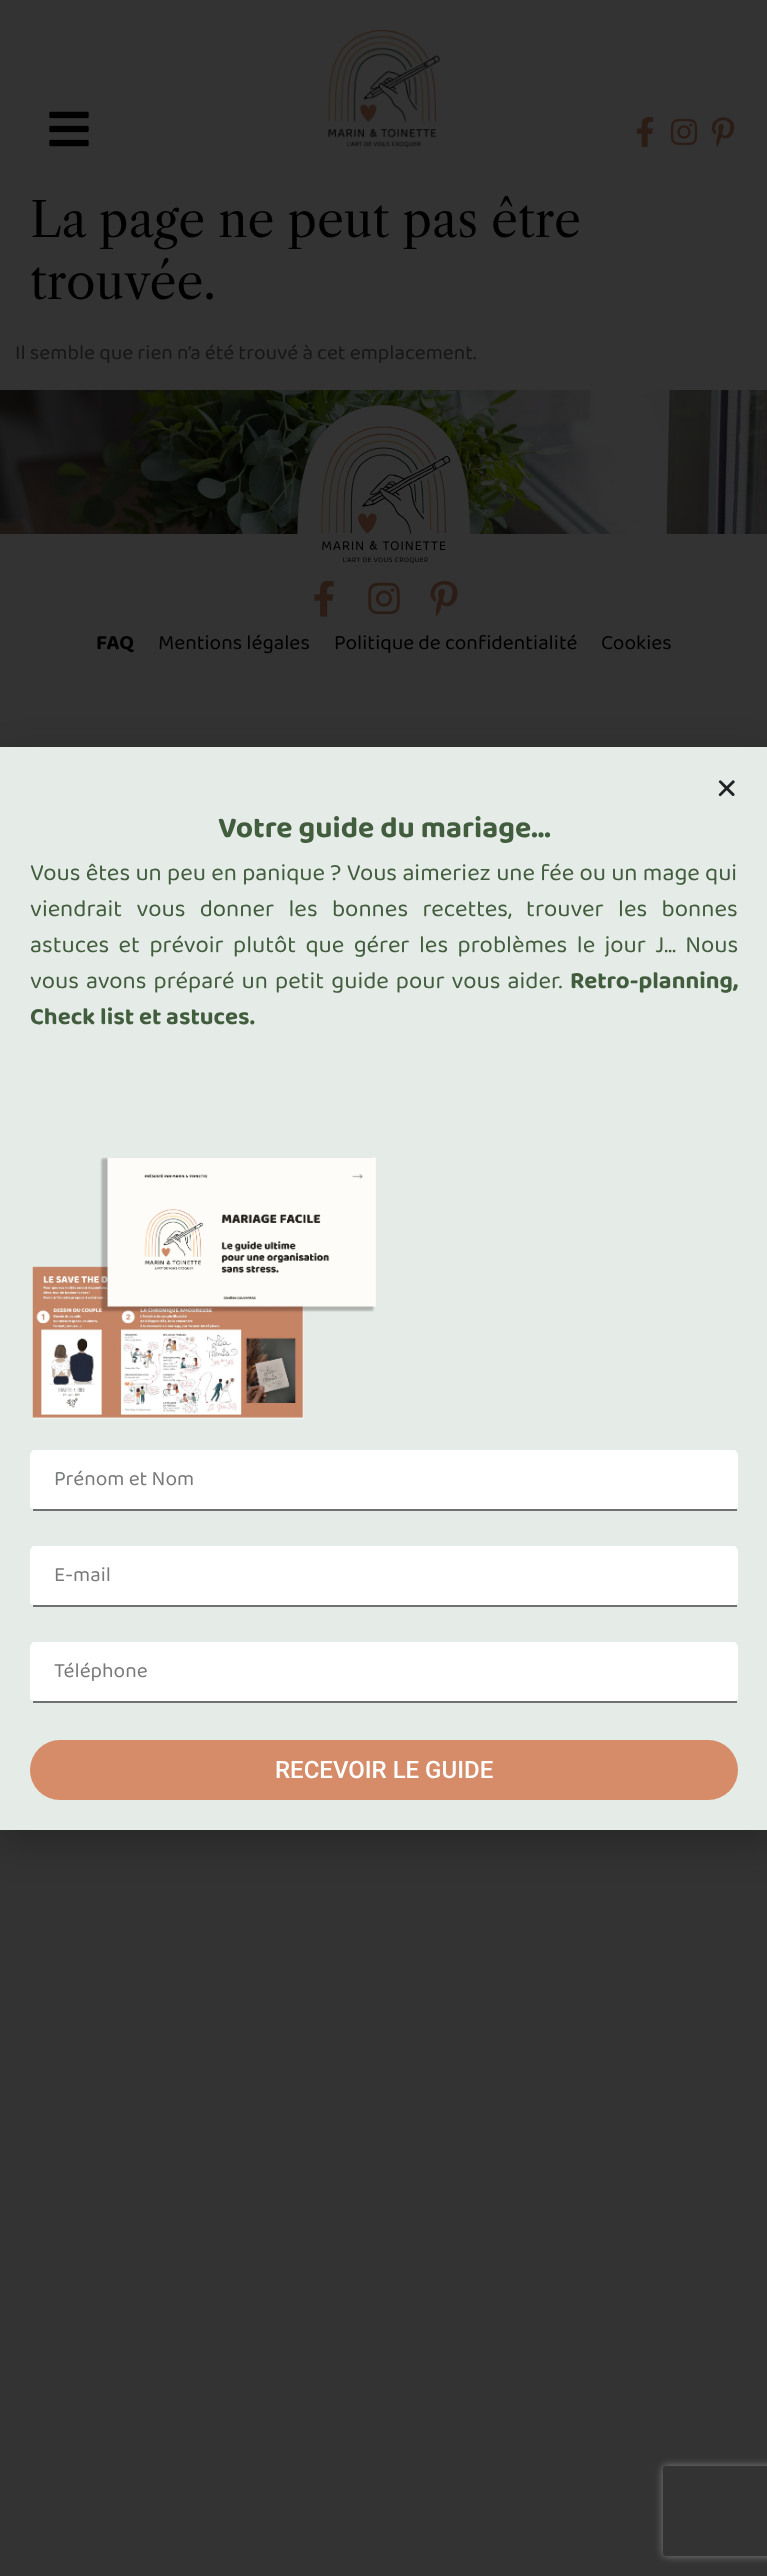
<svg xmlns="http://www.w3.org/2000/svg" width="767" height="2576">
	<defs>
		<clipPath id="clip1"><path d="M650 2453H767V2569H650ZM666 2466H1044C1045.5 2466 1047 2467.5 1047 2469V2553C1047 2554.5 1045.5 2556 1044 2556H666C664.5 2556 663 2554.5 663 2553V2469C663 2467.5 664.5 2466 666 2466Z" clip-rule="evenodd" /></clipPath>
	</defs>
	<rect width="100%" height="100%" fill="#333333" />
	<image x="49" y="111" width="40" height="36" href="assets/img1.png" />
	<image x="328" y="30" width="112" height="117" href="assets/img2.png" />
	<image x="636" y="117" width="18" height="30" href="assets/img3.png" />
	<image x="670" y="118" width="28" height="28" href="assets/img4.png" />
	<image x="711" y="117" width="24" height="30" href="assets/img5.png" />
	<g font-family="Libre Caslon Text" font-size="48" fill="#000000">
		<text x="30" y="237">La page ne peut pas être</text>
		<text x="30" y="299">trouvée.</text>
	</g>
	<text x="15" y="359" font-family="'Baloo Thambi 2'" font-size="21" fill="#161616">Il semble que rien n’a été trouvé à cet emplacement.</text>
	<image x="0" y="390" width="767" height="144" href="assets/img6.png" />
	<image x="297" y="405" width="174" height="159" href="assets/img7.png" />
	<image x="314" y="581" width="20" height="36" href="assets/img8.png" />
	<image x="368" y="582" width="32" height="33" href="assets/img9.png" />
	<image x="430" y="581" width="28" height="35" href="assets/img10.png" />
	<text x="96" y="649" font-family="'Baloo Thambi 2'" font-size="21" font-weight="700" fill="#000000">FAQ</text>
	<g font-family="'Baloo Thambi 2'" font-size="21" fill="#000000">
		<text x="158" y="649">Mentions légales</text>
		<text x="334" y="649">Politique de confidentialité</text>
		<text x="601" y="649">Cookies</text>
	</g>
	<rect x="-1" y="755" width="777" height="1092" fill="#000000" fill-opacity="0.2" filter="blur(17px)" />
	<rect x="0" y="747" width="767" height="1083" fill="#E5EBE7" />
	<image x="718" y="780" width="17" height="17" href="assets/img11.png" />
	<text x="218" y="837" font-family="'Baloo Thambi 2'" font-size="30" font-weight="700" fill="#415D3D">Votre guide du mariage…</text>
	<g font-family="'Baloo Thambi 2'" font-size="24" fill="#415D3D">
		<text x="30" y="880" word-spacing="0.5">Vous êtes un peu en panique ? Vous aimeriez une fée ou un mage qui</text>
		<text x="30" y="916" word-spacing="9.5">viendrait vous donner les bonnes recettes, trouver les bonnes</text>
		<text x="30" y="952" word-spacing="4.6">astuces et prévoir plutôt que gérer les problèmes le jour J… Nous</text>
		<text x="30" y="988" word-spacing="2.25">vous avons préparé un petit guide pour vous aider.</text>
	</g>
	<g font-family="'Baloo Thambi 2'" font-size="24" font-weight="700" fill="#415D3D">
		<text x="570" y="988">Retro-planning,</text>
		<text x="30" y="1024">Check list et astuces.</text>
	</g>
	<image x="32" y="1157" width="344" height="262" href="assets/img12.png" />
	<path d="M34 1450H734C736 1450 738 1453 738 1455V1506C738 1508 736 1509 734 1509H34C32 1509 30 1508 30 1506V1455C30 1453 32 1450 34 1450Z" fill="#FFFFFF" />
	<rect x="33" y="1509" width="704" height="2" fill="#707070" />
	<text x="54" y="1485" font-family="'Baloo Thambi 2'" font-size="21" fill="#797A7C">Prénom et Nom</text>
	<path d="M34 1546H734C736 1546 738 1549 738 1551V1602C738 1604 736 1605 734 1605H34C32 1605 30 1604 30 1602V1551C30 1549 32 1546 34 1546Z" fill="#FFFFFF" />
	<rect x="33" y="1605" width="704" height="2" fill="#707070" />
	<text x="54" y="1581" font-family="'Baloo Thambi 2'" font-size="21" fill="#797A7C">E-mail</text>
	<path d="M34 1642H734C736 1642 738 1645 738 1647V1698C738 1700 736 1701 734 1701H34C32 1701 30 1700 30 1698V1647C30 1645 32 1642 34 1642Z" fill="#FFFFFF" />
	<rect x="33" y="1701" width="704" height="2" fill="#707070" />
	<text x="54" y="1677" font-family="'Baloo Thambi 2'" font-size="21" fill="#797A7C">Téléphone</text>
	<rect x="30" y="1740" width="708" height="60" rx="30" fill="#D68C68" />
	<text x="275" y="1778" font-family="Roboto" font-size="24" font-weight="500" fill="#FFFFFF">RECEVOIR LE GUIDE</text>
	<g clip-path="url(#clip1)">
		<rect x="663" y="2466" width="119" height="90" rx="3" fill="#808080" filter="blur(4px)" />
	</g>
</svg>
